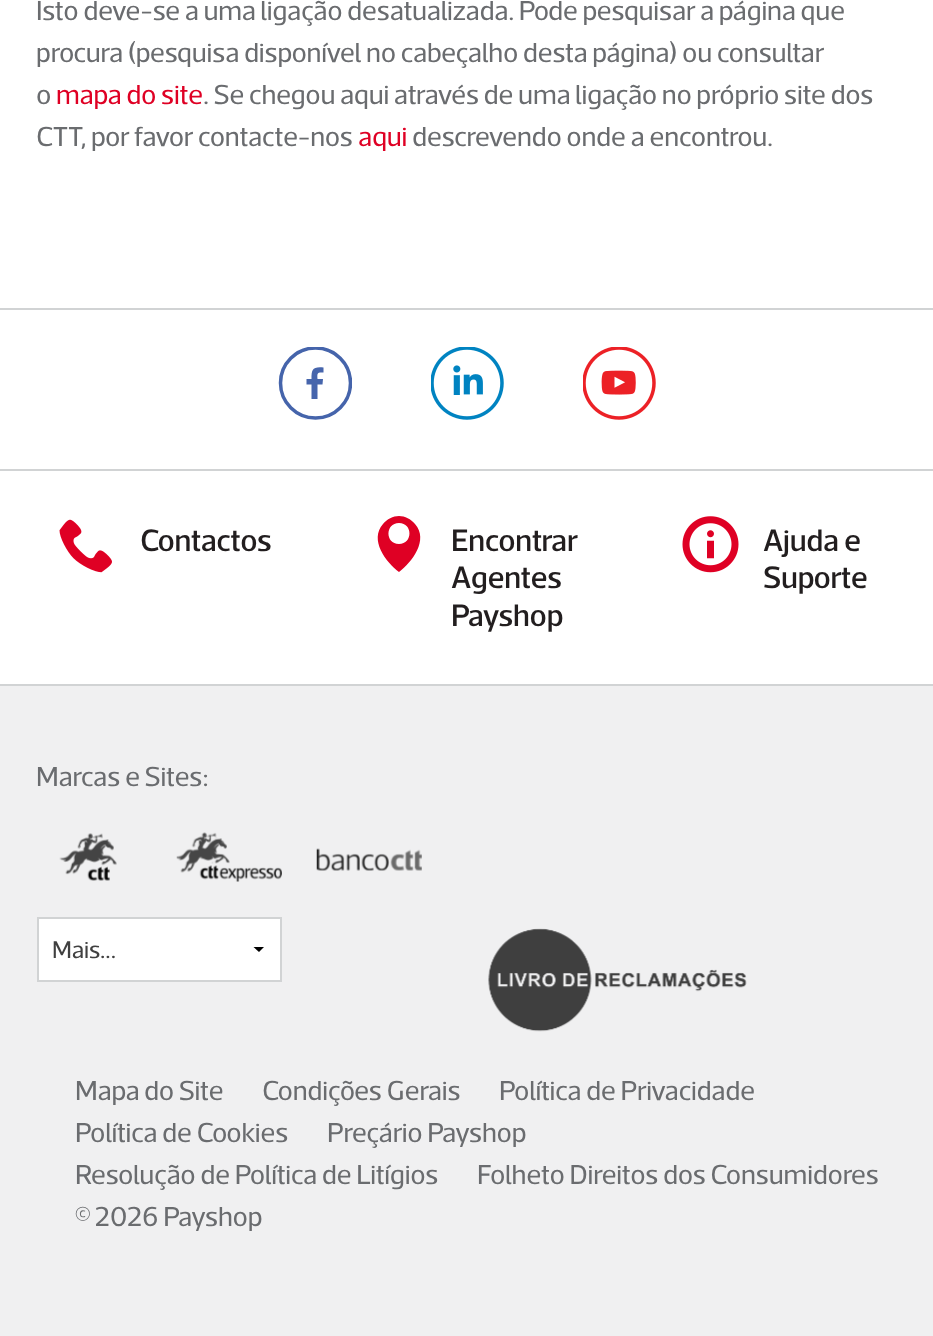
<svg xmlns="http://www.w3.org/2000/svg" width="933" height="1336">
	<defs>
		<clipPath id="clip1"><rect x="278" y="347" width="74" height="73" /></clipPath>
	</defs>
	<rect width="100%" height="100%" fill="#FFFFFF" />
	<g font-family="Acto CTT" font-size="28" fill="#6A6C6F">
		<text x="36" y="20">Isto deve-se a uma ligação desatualizada. Pode pesquisar a página que</text>
		<text x="36" y="62">procura (pesquisa disponível no cabeçalho desta página) ou consultar</text>
		<text x="36" y="104">o</text>
	</g>
	<text x="56" y="104" font-family="Acto CTT" font-size="28" fill="#DF0024">mapa do site</text>
	<g font-family="Acto CTT" font-size="28" fill="#6A6C6F">
		<text x="203" y="104">. Se chegou aqui através de uma ligação no próprio site dos</text>
		<text x="36" y="146">CTT, por favor contacte-nos</text>
	</g>
	<text x="358" y="146" font-family="Acto CTT" font-size="28" fill="#DF0024">aqui</text>
	<text x="412" y="146" font-family="Acto CTT" font-size="28" fill="#6A6C6F">descrevendo onde a encontrou.</text>
	<rect x="0" y="686" width="933" height="650" fill="#F0F0F1" />
	<rect x="0" y="308" width="933" height="2" fill="#D1D3D4" />
	<rect x="0" y="469" width="933" height="2" fill="#D1D3D4" />
	<path d="M320 372.5H323.5V367.5C312.5 366.5 311.5 369.5 311.5 379H306.5V384.5H311.5V399H317.5V384.5H322.5L323 379H317.5C317.5 376.5 316.5 372.5 320 372.5" fill="#4665AC" fill-rule="evenodd" />
	<g clip-path="url(#clip1)">
		<circle cx="315.5" cy="383" r="35" fill="none" stroke="#4564AB" stroke-width="3.5" />
	</g>
	<image x="431" y="347" width="73" height="73" href="assets/img1.png" />
	<image x="583" y="347" width="73" height="73" href="assets/img2.png" />
	<rect x="0" y="684" width="933" height="2" fill="#D1D3D4" />
	<image x="59" y="519" width="53" height="54" href="assets/img3.png" />
	<text x="140" y="551" font-family="Acto CTT" font-size="31.5" font-weight="500" fill="#221E1F">Contactos</text>
	<path d="M399 516C393 516 387 519 383 524C369 540 386 562 399 572C412 562 429 540 415 524C411 519 405 516 399 516ZM399 544C385 544 385 523 399 523C413 523 413 544 399 544Z" fill="#DF0024" />
	<g font-family="Acto CTT" font-size="31.5" font-weight="500" fill="#221E1F">
		<text x="451" y="551">Encontrar</text>
		<text x="451" y="588">Agentes</text>
		<text x="451" y="626">Payshop</text>
	</g>
	<image x="682" y="516" width="57" height="57" href="assets/img4.png" />
	<g font-family="Acto CTT" font-size="31.5" font-weight="500" fill="#221E1F">
		<text x="763" y="551">Ajuda e</text>
		<text x="763" y="588">Suporte</text>
	</g>
	<text x="36" y="786" font-family="Acto CTT" font-size="28" fill="#6A6C6F">Marcas e Sites:</text>
	<image x="59" y="833" width="58" height="48" href="assets/img5.png" />
	<image x="176" y="832" width="106" height="50" href="assets/img6.png" />
	<image x="316" y="848" width="106" height="23" href="assets/img7.png" />
	<rect x="39" y="919" width="241" height="61" fill="#FFFFFF" />
	<path d="M264 947L259 952L253.5 947Z" fill="#000000" />
	<rect x="38" y="918" width="243" height="63" fill="none" stroke="#D1D3D4" stroke-width="2" />
	<text x="52" y="958" font-family="Acto CTT" font-size="24.5" fill="#404040">Mais...</text>
	<image x="488" y="928" width="259" height="104" href="assets/img8.png" />
	<g font-family="Acto CTT" font-size="28" fill="#6A6C6F">
		<text x="75" y="1100">Mapa do Site</text>
		<text x="262" y="1100">Condições Gerais</text>
		<text x="499" y="1100">Política de Privacidade</text>
		<text x="75" y="1142">Política de Cookies</text>
		<text x="327" y="1142">Preçário Payshop</text>
		<text x="75" y="1184">Resolução de Política de Litígios</text>
		<text x="477" y="1184">Folheto Direitos dos Consumidores</text>
		<text x="75" y="1226">© 2026 Payshop</text>
	</g>
</svg>
